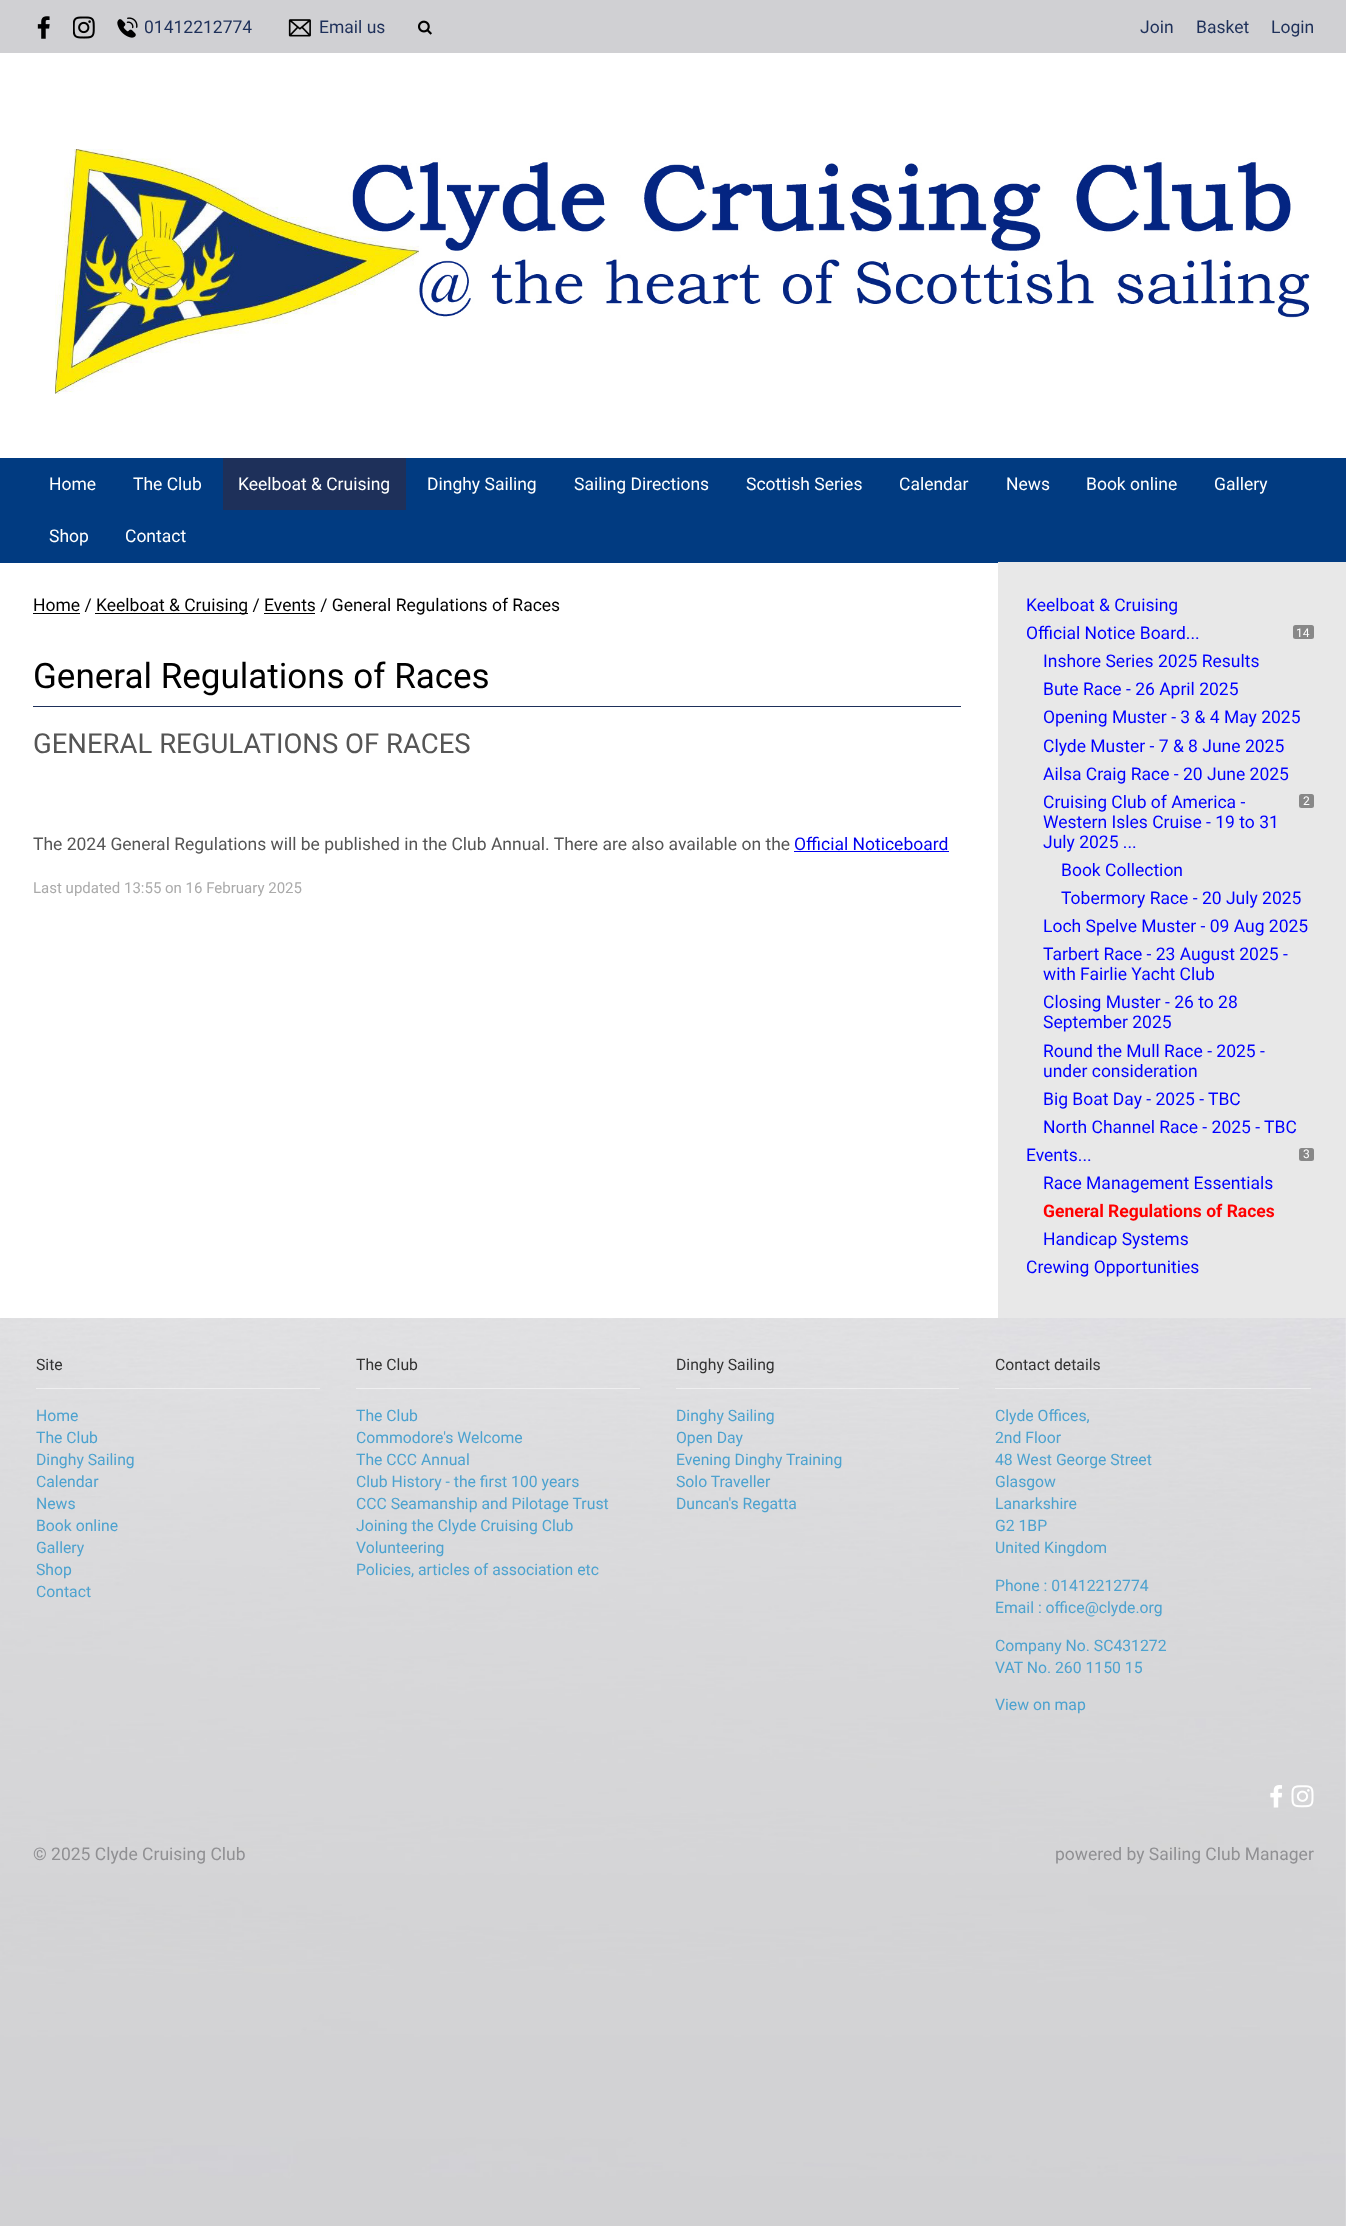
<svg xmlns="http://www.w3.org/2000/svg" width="1346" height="2226">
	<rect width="100%" height="100%" fill="#FFFFFF" />
	<image x="0" y="1318" width="1346" height="908" href="assets/img1.png" />
	<rect x="0" y="0" width="1346" height="53" fill="#D0D0D3" />
	<image x="37" y="16" width="13" height="23" href="assets/img2.png" />
	<image x="73" y="16" width="22" height="23" href="assets/img3.png" />
	<image x="117" y="17" width="21" height="21" href="assets/img4.png" />
	<text x="144" y="33" font-family="Roboto" font-size="17.5" fill="#1E305A">01412212774</text>
	<image x="288" y="19" width="23" height="18" href="assets/img5.png" />
	<text x="319" y="33" font-family="Roboto" font-size="17.5" fill="#1E305A">Email us</text>
	<image x="418" y="20" width="14" height="15" href="assets/img6.png" />
	<g font-family="Roboto" font-size="17.5" fill="#1E305A">
		<text x="1140" y="33">Join</text>
		<text x="1196" y="33">Basket</text>
		<text x="1271" y="33">Login</text>
	</g>
	<image x="55" y="149" width="1255" height="245" href="assets/img7.png" />
	<rect x="0" y="458" width="1346" height="105" fill="#013B81" />
	<g font-family="Roboto" font-size="17.5" fill="#FFFFFF">
		<text x="49" y="490">Home</text>
		<text x="133" y="490">The Club</text>
	</g>
	<rect x="223" y="458" width="183" height="52" fill="#1E305A" />
	<g font-family="Roboto" font-size="17.5" fill="#FFFFFF">
		<text x="238" y="490">Keelboat &amp; Cruising</text>
		<text x="427" y="490">Dinghy Sailing</text>
		<text x="574" y="490">Sailing Directions</text>
		<text x="746" y="490">Scottish Series</text>
		<text x="899" y="490">Calendar</text>
		<text x="1006" y="490">News</text>
		<text x="1086" y="490">Book online</text>
		<text x="1214" y="490">Gallery</text>
		<text x="49" y="542">Shop</text>
		<text x="125" y="542">Contact</text>
	</g>
	<rect x="998" y="562" width="348" height="756" fill="#E8E8E8" />
	<text x="33" y="611" font-family="Roboto" font-size="17.5" fill="#000000">Home /</text>
	<rect x="33" y="613" width="47" height="1" fill="#000000" />
	<rect x="95" y="613" width="153" height="1" fill="#000000" />
	<text x="96" y="611" font-family="Roboto" font-size="17.5" fill="#000000">Keelboat &amp; Cruising / Events / General Regulations of Races</text>
	<rect x="264" y="613" width="51" height="1" fill="#000000" />
	<rect x="33" y="706" width="928" height="1" fill="#1E305A" />
	<text x="33" y="688" font-family="Roboto" font-size="35" fill="#000000">General Regulations of Races</text>
	<text x="33" y="753" font-family="Roboto" font-size="27.5" fill="#555555">GENERAL REGULATIONS OF RACES</text>
	<text x="33" y="850" font-family="Roboto" font-size="17.5" fill="#555555">The 2024 General Regulations will be published in the Club Annual. There are also available on the</text>
	<text x="794" y="850" font-family="Roboto" font-size="17.5" fill="#0000EE">Official Noticeboard</text>
	<rect x="794" y="851" width="155" height="1" fill="#0000EE" />
	<text x="33" y="893" font-family="Roboto" font-size="15" fill="#AAAAAA">Last updated 13:55 on 16 February 2025</text>
	<g font-family="Roboto" font-size="17.5" fill="#0000FF">
		<text x="1026" y="611">Keelboat &amp; Cruising</text>
		<text x="1026" y="639">Official Notice Board...</text>
	</g>
	<rect x="1293" y="625" width="21" height="14" rx="2.5" fill="#888888" />
	<text x="1296" y="637" font-family="Roboto" font-size="12" fill="#FFFFFF">14</text>
	<g font-family="Roboto" font-size="17.5" fill="#0000FF">
		<text x="1043" y="667">Inshore Series 2025 Results</text>
		<text x="1043" y="695">Bute Race - 26 April 2025</text>
		<text x="1043" y="723">Opening Muster - 3 &amp; 4 May 2025</text>
		<text x="1043" y="752">Clyde Muster - 7 &amp; 8 June 2025</text>
		<text x="1043" y="780">Ailsa Craig Race - 20 June 2025</text>
		<text x="1043" y="808">Cruising Club of America -</text>
	</g>
	<rect x="1299" y="794" width="15" height="14" rx="2.5" fill="#888888" />
	<text x="1303" y="805" font-family="Roboto" font-size="12" fill="#FFFFFF">2</text>
	<g font-family="Roboto" font-size="17.5" fill="#0000FF">
		<text x="1043" y="828">Western Isles Cruise - 19 to 31</text>
		<text x="1043" y="848">July 2025 ...</text>
		<text x="1061" y="876">Book Collection</text>
		<text x="1061" y="904">Tobermory Race - 20 July 2025</text>
		<text x="1043" y="932">Loch Spelve Muster - 09 Aug 2025</text>
		<text x="1043" y="960">Tarbert Race - 23 August 2025 -</text>
		<text x="1043" y="980">with Fairlie Yacht Club</text>
		<text x="1043" y="1008">Closing Muster - 26 to 28</text>
		<text x="1043" y="1028">September 2025</text>
		<text x="1043" y="1057">Round the Mull Race - 2025 -</text>
		<text x="1043" y="1077">under consideration</text>
		<text x="1043" y="1105">Big Boat Day - 2025 - TBC</text>
		<text x="1043" y="1133">North Channel Race - 2025 - TBC</text>
		<text x="1026" y="1161">Events...</text>
	</g>
	<rect x="1299" y="1148" width="15" height="13" rx="2.5" fill="#888888" />
	<text x="1303" y="1158" font-family="Roboto" font-size="12" fill="#FFFFFF">3</text>
	<text x="1043" y="1189" font-family="Roboto" font-size="17.5" fill="#0000FF">Race Management Essentials</text>
	<text x="1043" y="1217" font-family="Roboto" font-size="17.5" font-weight="700" fill="#FF0000">General Regulations of Races</text>
	<g font-family="Roboto" font-size="17.5" fill="#0000FF">
		<text x="1043" y="1245">Handicap Systems</text>
		<text x="1026" y="1273">Crewing Opportunities</text>
	</g>
	<rect x="36" y="1388" width="284" height="1" fill="#FFFFFF" fill-opacity="0.5" />
	<text x="36" y="1370" font-family="Roboto" font-size="15.75" fill="#333333">Site</text>
	<g font-family="Roboto" font-size="15.75" fill="#4DA2CF">
		<text x="36" y="1421">Home</text>
		<text x="36" y="1443">The Club</text>
		<text x="36" y="1465">Dinghy Sailing</text>
		<text x="36" y="1487">Calendar</text>
		<text x="36" y="1509">News</text>
		<text x="36" y="1531">Book online</text>
		<text x="36" y="1553">Gallery</text>
		<text x="36" y="1575">Shop</text>
		<text x="36" y="1597">Contact</text>
	</g>
	<rect x="356" y="1388" width="284" height="1" fill="#FFFFFF" fill-opacity="0.5" />
	<text x="356" y="1370" font-family="Roboto" font-size="15.75" fill="#333333">The Club</text>
	<g font-family="Roboto" font-size="15.75" fill="#4DA2CF">
		<text x="356" y="1421">The Club</text>
		<text x="356" y="1443">Commodore's Welcome</text>
		<text x="356" y="1465">The CCC Annual</text>
		<text x="356" y="1487">Club History - the first 100 years</text>
		<text x="356" y="1509">CCC Seamanship and Pilotage Trust</text>
		<text x="356" y="1531">Joining the Clyde Cruising Club</text>
		<text x="356" y="1553">Volunteering</text>
		<text x="356" y="1575">Policies, articles of association etc</text>
	</g>
	<rect x="676" y="1388" width="283" height="1" fill="#FFFFFF" fill-opacity="0.5" />
	<text x="676" y="1370" font-family="Roboto" font-size="15.75" fill="#333333">Dinghy Sailing</text>
	<g font-family="Roboto" font-size="15.75" fill="#4DA2CF">
		<text x="676" y="1421">Dinghy Sailing</text>
		<text x="676" y="1443">Open Day</text>
		<text x="676" y="1465">Evening Dinghy Training</text>
		<text x="676" y="1487">Solo Traveller</text>
		<text x="676" y="1509">Duncan's Regatta</text>
	</g>
	<rect x="995" y="1388" width="316" height="1" fill="#FFFFFF" fill-opacity="0.5" />
	<text x="995" y="1370" font-family="Roboto" font-size="15.75" fill="#333333">Contact details</text>
	<g font-family="Roboto" font-size="15.75" fill="#4DA2CF">
		<text x="995" y="1421">Clyde Offices,</text>
		<text x="995" y="1443">2nd Floor</text>
		<text x="995" y="1465">48 West George Street</text>
		<text x="995" y="1487">Glasgow</text>
		<text x="995" y="1509">Lanarkshire</text>
		<text x="995" y="1531">G2 1BP</text>
		<text x="995" y="1553">United Kingdom</text>
		<text x="995" y="1591">Phone : 01412212774</text>
		<text x="995" y="1613">Email : office@clyde.org</text>
		<text x="995" y="1651">Company No. SC431272</text>
		<text x="995" y="1673">VAT No. 260 1150 15</text>
		<text x="995" y="1710">View on map</text>
	</g>
	<image x="1270" y="1785" width="12" height="23" href="assets/img8.png" />
	<image x="1291" y="1785" width="23" height="23" href="assets/img9.png" />
	<g font-family="Roboto" font-size="17.5" fill="#909093">
		<text x="33" y="1860">© 2025 Clyde Cruising Club</text>
		<text x="1055" y="1860">powered by Sailing Club Manager</text>
	</g>
</svg>
